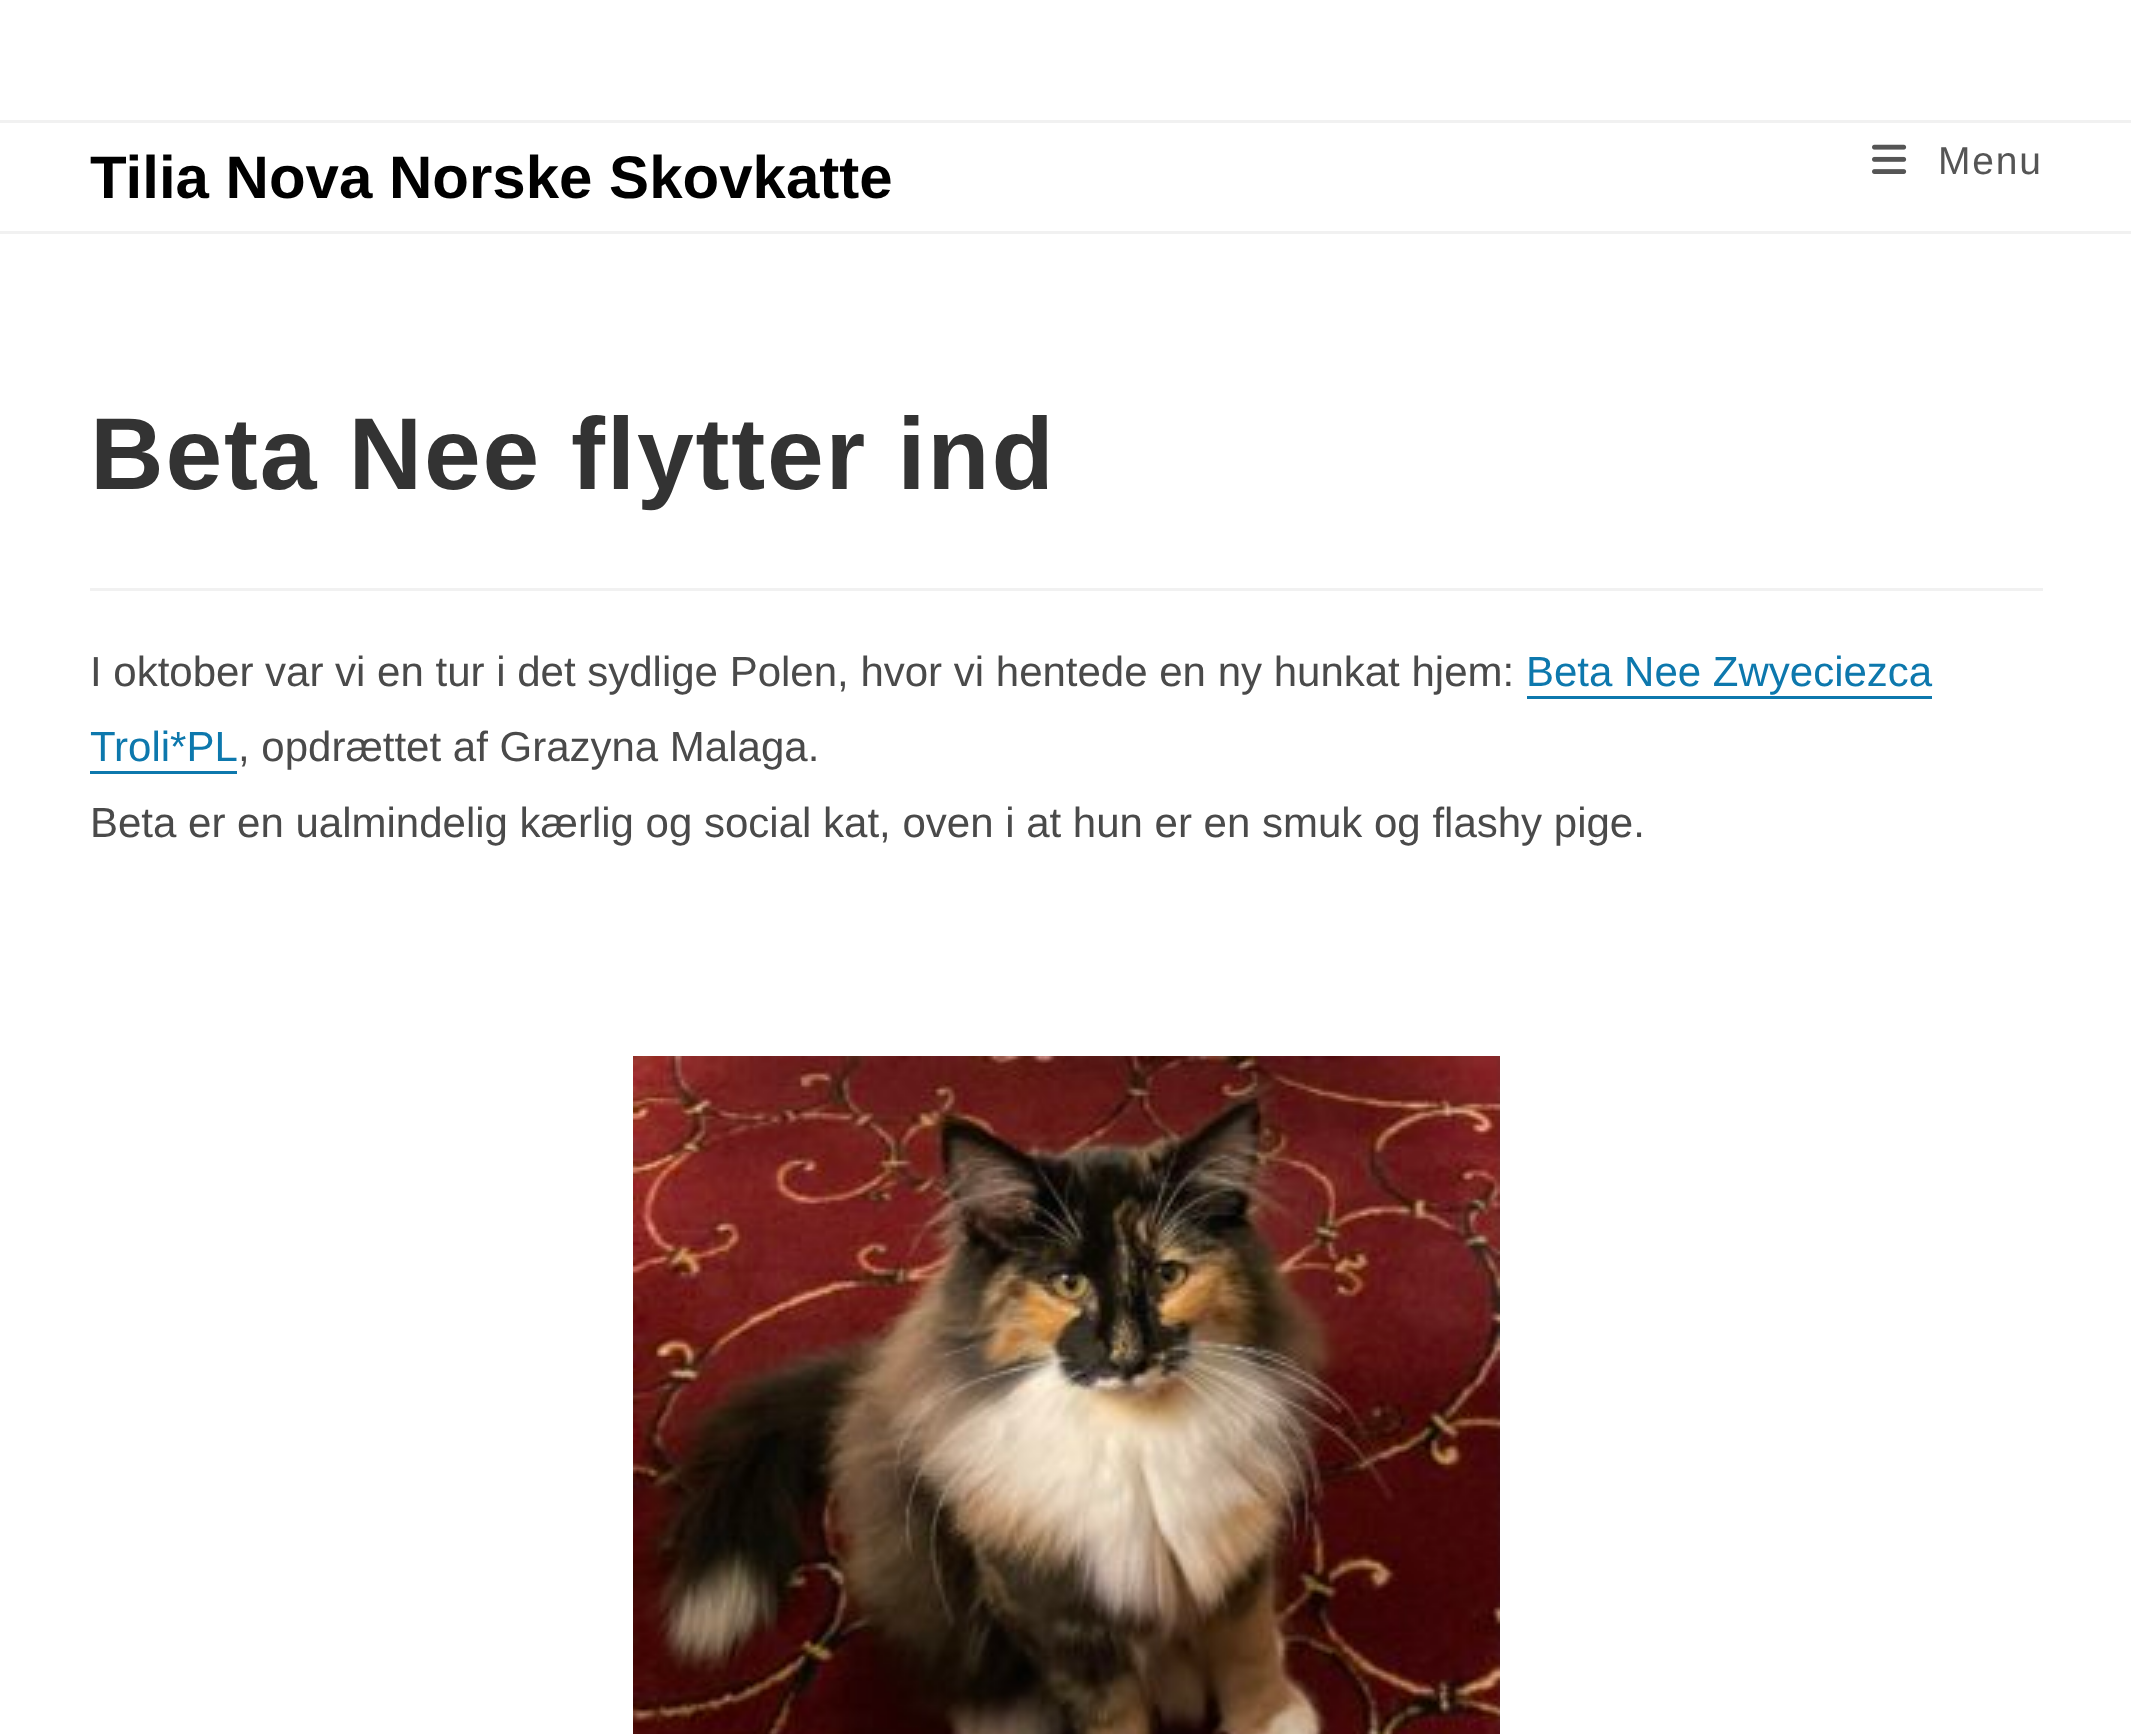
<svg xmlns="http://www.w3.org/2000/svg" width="2131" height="1734">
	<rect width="100%" height="100%" fill="#FFFFFF" />
	<rect x="0" y="120" width="2131" height="3" fill="#F1F1F1" />
	<rect x="0" y="231" width="2131" height="3" fill="#F1F1F1" />
	<text x="90" y="198" font-family="Liberation Sans" font-size="60" font-weight="700" fill="#000000">Tilia Nova Norske Skovkatte</text>
	<image x="1872" y="144" width="35" height="30" href="assets/img1.png" />
	<text x="1938" y="174" font-family="Liberation Sans" font-size="39" letter-spacing="1.8" fill="#555555">Menu</text>
	<rect x="90" y="588" width="1953" height="3" fill="#F1F1F1" />
	<text x="90" y="489" font-family="Liberation Sans" font-size="102" font-weight="700" letter-spacing="1.8" fill="#333333">Beta Nee flytter ind</text>
	<text x="90" y="686" font-family="Liberation Sans" font-size="42" fill="#4A4A4A">I oktober var vi en tur i det sydlige Polen, hvor vi hentede en ny hunkat hjem:</text>
	<text x="1526" y="686" font-family="Liberation Sans" font-size="42" fill="#0D78AD">Beta Nee Zwyeciezca</text>
	<rect x="1527" y="696" width="405" height="3" fill="#0D78AD" />
	<text x="90" y="761" font-family="Liberation Sans" font-size="42" fill="#0D78AD">Troli*PL</text>
	<rect x="90" y="771" width="147" height="3" fill="#0D78AD" />
	<g font-family="Liberation Sans" font-size="42" fill="#4A4A4A">
		<text x="238" y="761">, opdrættet af Grazyna Malaga.</text>
		<text x="90" y="837">Beta er en ualmindelig kærlig og social kat, oven i at hun er en smuk og flashy pige.</text>
	</g>
	<image x="633" y="1056" width="867" height="678" href="assets/img2.png" />
</svg>
